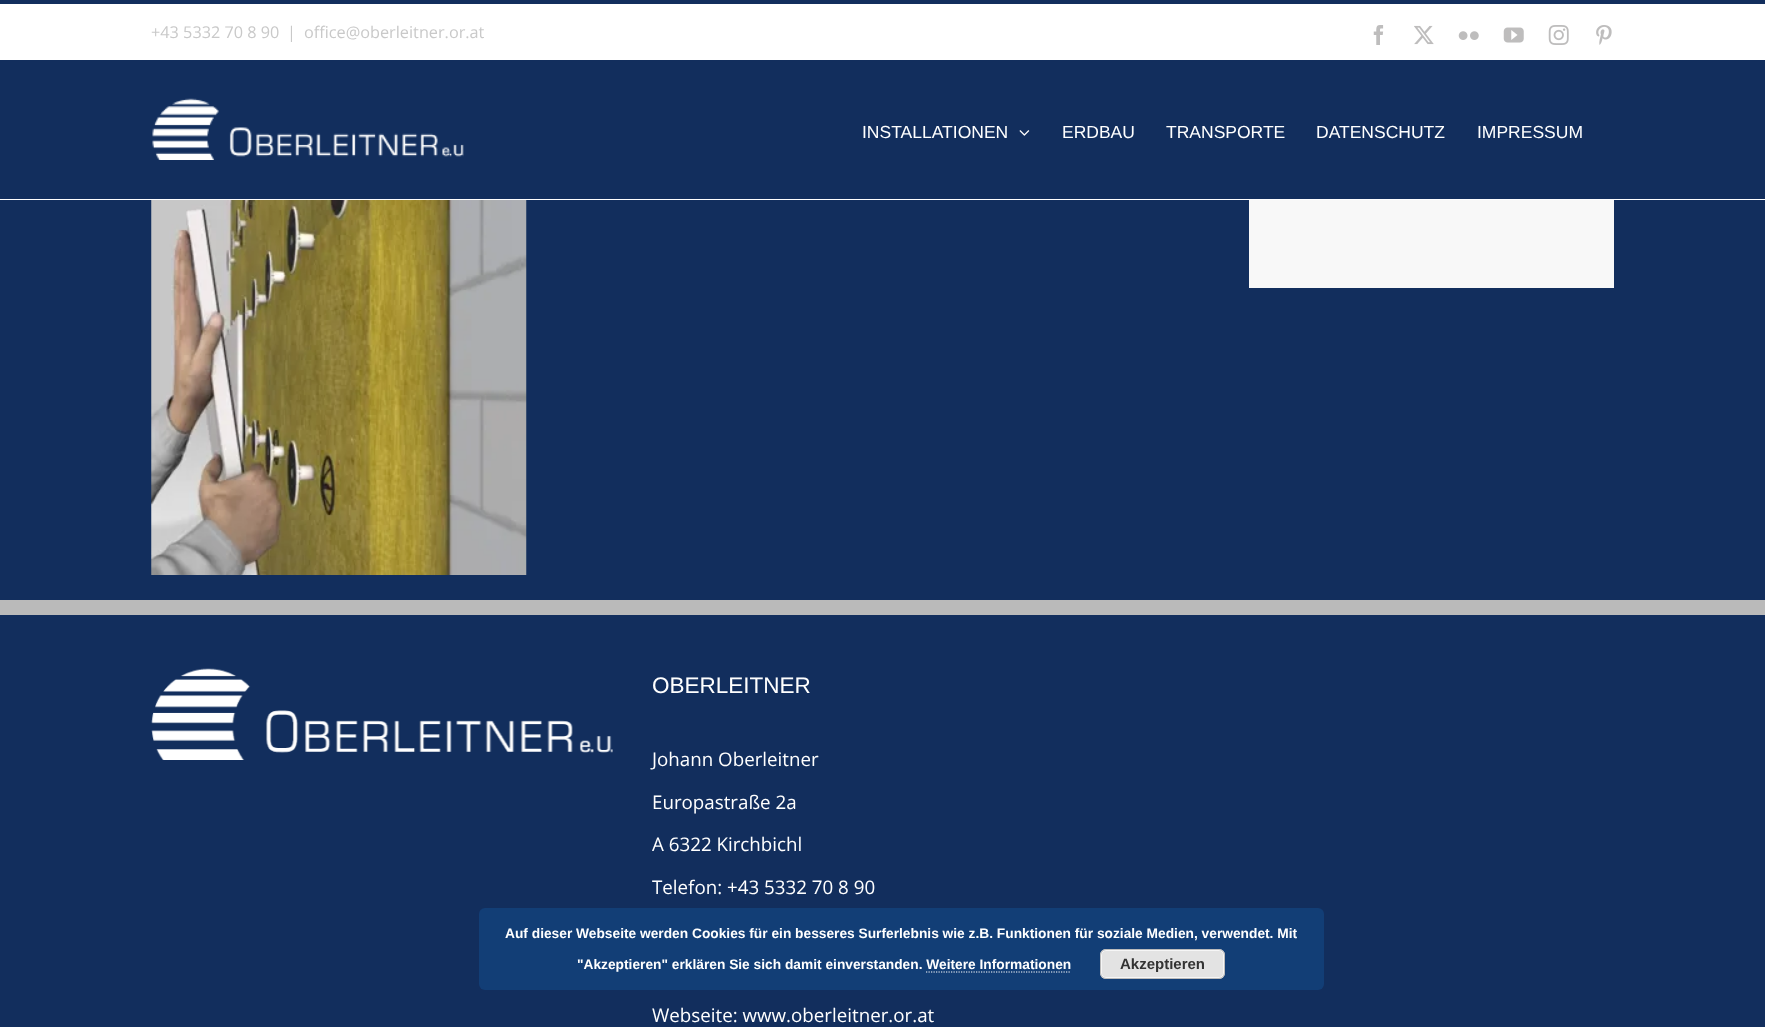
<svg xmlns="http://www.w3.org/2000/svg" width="1765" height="1027">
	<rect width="100%" height="100%" fill="#122E5D" />
	<rect x="0" y="4" width="1765" height="56" fill="#FFFFFF" />
	<g font-family="Open Sans" font-size="16.25" fill="#C9C9C9">
		<text x="151" y="38">+43 5332 70 8 90</text>
		<text x="287" y="38">|</text>
		<text x="304" y="38">office@oberleitner.or.at</text>
	</g>
	<image x="1373" y="25" width="11" height="20" href="assets/img1.png" />
	<image x="1414" y="25" width="20" height="20" href="assets/img2.png" />
	<image x="1458" y="31" width="21" height="9" href="assets/img3.png" />
	<image x="1503" y="27" width="21" height="16" href="assets/img4.png" />
	<image x="1548" y="25" width="21" height="20" href="assets/img5.png" />
	<image x="1596" y="25" width="16" height="20" href="assets/img6.png" />
	<rect x="0" y="199" width="1765" height="1" fill="#FFFFFF" />
	<image x="152" y="98" width="312" height="62" href="assets/img7.png" />
	<text x="862" y="138" font-family="Liberation Sans" font-size="17.5" fill="#FFFFFF">INSTALLATIONEN</text>
	<image x="1019" y="130" width="11" height="6" href="assets/img8.png" />
	<g font-family="Liberation Sans" font-size="17.5" fill="#FFFFFF">
		<text x="1062" y="138">ERDBAU</text>
		<text x="1166" y="138">TRANSPORTE</text>
		<text x="1316" y="138">DATENSCHUTZ</text>
		<text x="1477" y="138">IMPRESSUM</text>
	</g>
	<image x="151" y="200" width="376" height="375" href="assets/img9.png" />
	<rect x="1249" y="200" width="365" height="88" fill="#F8F8F8" />
	<rect x="0" y="600" width="1765" height="15" fill="#BABABA" />
	<image x="151" y="668" width="462" height="92" href="assets/img10.png" />
	<text x="652" y="693" font-family="Liberation Sans" font-size="22.5" fill="#FFFFFF">OBERLEITNER</text>
	<g font-family="Open Sans" font-size="18.75" fill="#FFFFFF">
		<text x="652" y="766">Johann Oberleitner</text>
		<text x="652" y="809">Europastraße 2a</text>
		<text x="652" y="851">A 6322 Kirchbichl</text>
		<text x="652" y="894">Telefon: +43 5332 70 8 90</text>
		<text x="652" y="1022">Webseite: www.oberleitner.or.at</text>
	</g>
	<rect x="479" y="908" width="845" height="82" rx="6" fill="#13417A" fill-opacity="0.85" />
	<g font-family="Liberation Sans" font-size="13.75" font-weight="700" fill="#FFFFFF">
		<text x="505" y="938">Auf dieser Webseite werden Cookies für ein besseres Surferlebnis wie z.B. Funktionen für soziale Medien, verwendet. Mit</text>
		<text x="577" y="969">"Akzeptieren" erklären Sie sich damit einverstanden. Weitere Informationen</text>
	</g>
	<rect x="1100" y="949" width="125" height="30" rx="6" fill="#E3E3E3" />
	<rect x="1101.5" y="950.5" width="122" height="27" rx="4.5" fill="none" stroke="#F6F6F6" />
	<rect x="1100.5" y="949.5" width="124" height="29" rx="5.5" fill="none" stroke="#BBBBBB" />
	<text x="1120" y="969" font-family="Liberation Sans" font-size="15" font-weight="700" fill="#333333">Akzeptieren</text>
	<path d="M926 972H1071" fill="none" stroke="#FFFFFF" stroke-width="1.2" stroke-dasharray="1.25 1.25" />
</svg>
